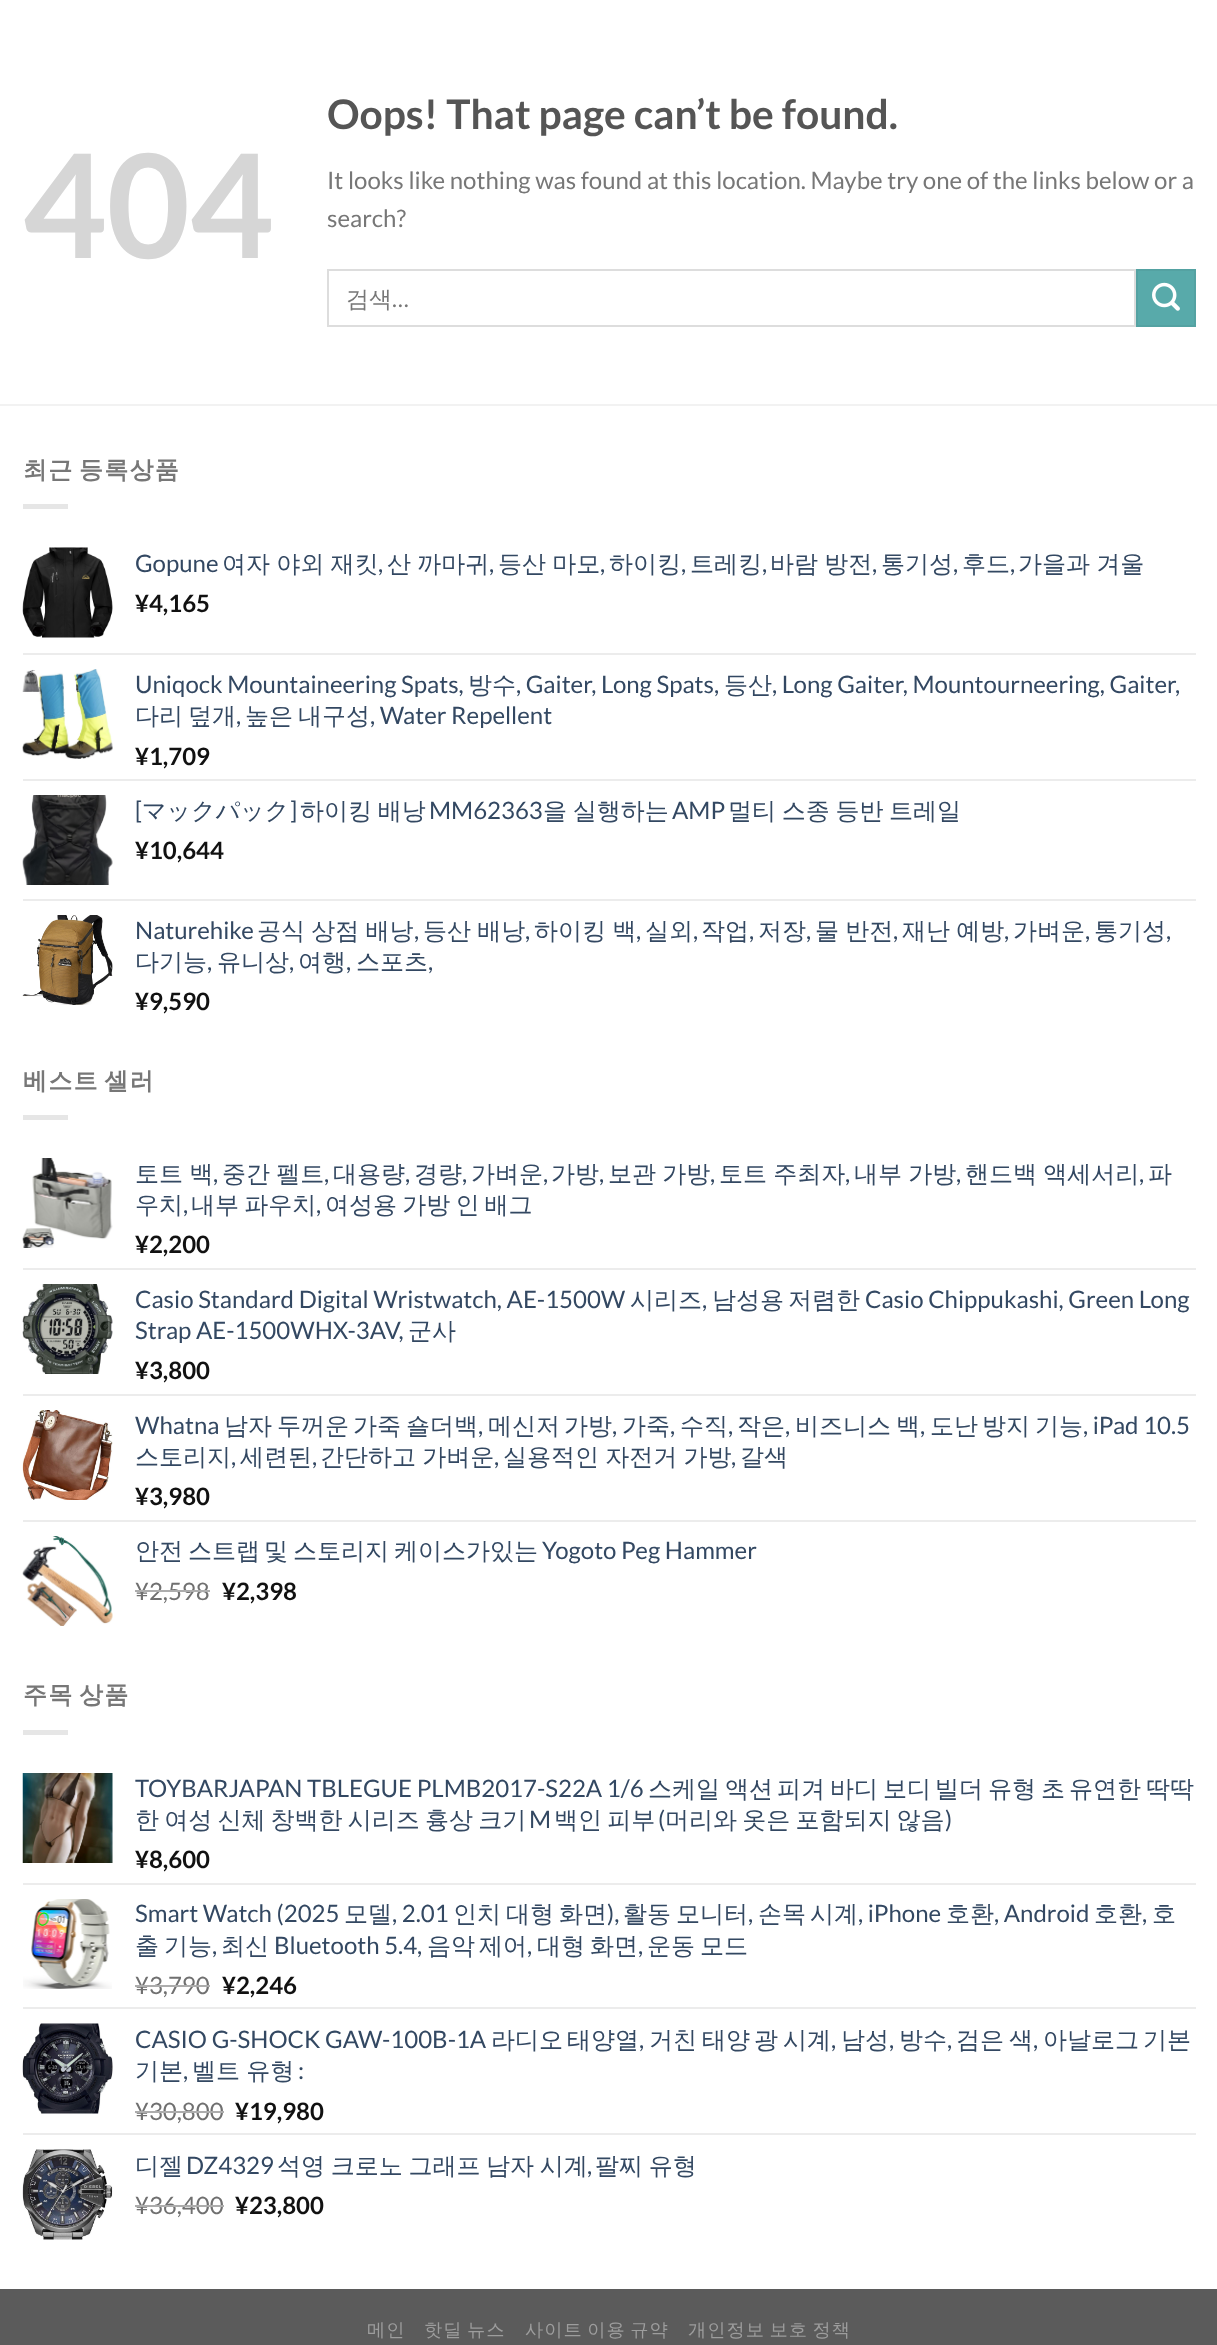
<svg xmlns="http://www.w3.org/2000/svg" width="1217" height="2345">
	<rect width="100%" height="100%" fill="#FFFFFF" />
	<text x="23" y="258" font-family="Lato" font-size="144" font-weight="700" fill="#D6D6D6">404</text>
	<text x="327" y="129" font-family="Lato" font-size="40.75" font-weight="700" fill="#555555">Oops! That page can’t be found.</text>
	<g font-family="Lato" font-size="24" fill="#777777">
		<text x="327" y="189">It looks like nothing was found at this location. Maybe try one of the links below or a</text>
		<text x="327" y="227">search?</text>
	</g>
	<rect x="328" y="270" width="807" height="56" fill="none" stroke="#DDDDDD" stroke-width="2" />
	<text x="346" y="307" font-family="WenQuanYi Zen Hei" font-size="23" font-weight="500" fill="#777777">검색</text>
	<text x="392" y="307" font-family="Lato" font-size="23" fill="#777777">…</text>
	<rect x="1137" y="270" width="58" height="56" fill="#58AAAA" stroke="#54A2A2" stroke-width="2" />
	<image x="1152" y="282" width="28" height="29" href="assets/img1.png" />
	<rect x="0" y="404" width="1217" height="2" fill="#F2F2F2" />
	<text x="23" y="478" word-spacing="-3" font-family="WenQuanYi Zen Hei" font-size="24" font-weight="700" letter-spacing="1.25" fill="#777777">최근 등록상품</text>
	<rect x="23" y="504" width="45" height="5" fill="#E6E6E6" />
	<image x="22" y="547" width="91" height="91" href="assets/img2.png" />
	<text x="135" y="572" font-family="Lato" font-size="24" fill="#334862">Gopune</text>
	<text x="222" y="572" word-spacing="-1" font-family="WenQuanYi Zen Hei" font-size="24" font-weight="500" fill="#334862">여자 야외 재킷</text>
	<text x="378" y="572" font-family="Lato" font-size="24" fill="#334862">,</text>
	<text x="387" y="572" word-spacing="-1" font-family="WenQuanYi Zen Hei" font-size="24" font-weight="500" fill="#334862">산 까마귀</text>
	<text x="489" y="572" font-family="Lato" font-size="24" fill="#334862">,</text>
	<text x="498" y="572" word-spacing="-1" font-family="WenQuanYi Zen Hei" font-size="24" font-weight="500" fill="#334862">등산 마모</text>
	<text x="600" y="572" font-family="Lato" font-size="24" fill="#334862">,</text>
	<text x="609" y="572" font-family="WenQuanYi Zen Hei" font-size="24" font-weight="500" fill="#334862">하이킹</text>
	<text x="681" y="572" font-family="Lato" font-size="24" fill="#334862">,</text>
	<text x="690" y="572" font-family="WenQuanYi Zen Hei" font-size="24" font-weight="500" fill="#334862">트레킹</text>
	<text x="762" y="572" font-family="Lato" font-size="24" fill="#334862">,</text>
	<text x="770" y="572" word-spacing="-1" font-family="WenQuanYi Zen Hei" font-size="24" font-weight="500" fill="#334862">바람 방전</text>
	<text x="872" y="572" font-family="Lato" font-size="24" fill="#334862">,</text>
	<text x="881" y="572" font-family="WenQuanYi Zen Hei" font-size="24" font-weight="500" fill="#334862">통기성</text>
	<text x="953" y="572" font-family="Lato" font-size="24" fill="#334862">,</text>
	<text x="962" y="572" font-family="WenQuanYi Zen Hei" font-size="24" font-weight="500" fill="#334862">후드</text>
	<text x="1010" y="572" font-family="Lato" font-size="24" fill="#334862">,</text>
	<text x="1018" y="572" word-spacing="-1" font-family="WenQuanYi Zen Hei" font-size="24" font-weight="500" fill="#334862">가을과 겨울</text>
	<text x="135" y="612" font-family="Lato" font-size="24" font-weight="700" fill="#111111">¥4,165</text>
	<rect x="23" y="653" width="1173" height="2" fill="#ECECEC" />
	<image x="22" y="669" width="91" height="90" href="assets/img3.png" />
	<text x="135" y="693" font-family="Lato" font-size="24" fill="#334862">Uniqock Mountaineering Spats,</text>
	<text x="468" y="693" font-family="WenQuanYi Zen Hei" font-size="24" font-weight="500" fill="#334862">방수</text>
	<text x="516" y="693" font-family="Lato" font-size="24" fill="#334862">, Gaiter, Long Spats,</text>
	<text x="724" y="693" font-family="WenQuanYi Zen Hei" font-size="24" font-weight="500" fill="#334862">등산</text>
	<text x="772" y="693" font-family="Lato" font-size="24" fill="#334862">, Long Gaiter, Mountourneering, Gaiter,</text>
	<g font-family="WenQuanYi Zen Hei" font-size="24" font-weight="500" fill="#334862">
		<text x="135" y="724">다리</text>
		<text x="188" y="724">덮개</text>
	</g>
	<text x="236" y="724" font-family="Lato" font-size="24" fill="#334862">,</text>
	<g font-family="WenQuanYi Zen Hei" font-size="24" font-weight="500" fill="#334862">
		<text x="245" y="724">높은</text>
		<text x="298" y="724">내구성</text>
	</g>
	<text x="370" y="724" font-family="Lato" font-size="24" fill="#334862">, Water Repellent</text>
	<text x="135" y="765" font-family="Lato" font-size="24" font-weight="700" fill="#111111">¥1,709</text>
	<rect x="23" y="779" width="1173" height="2" fill="#ECECEC" />
	<image x="22" y="795" width="91" height="90" href="assets/img4.png" />
	<text x="135" y="819" font-family="Lato" font-size="24" fill="#334862">[</text>
	<text x="142" y="819" font-family="WenQuanYi Zen Hei" font-size="24" font-weight="500" fill="#334862">マックパック</text>
	<text x="290" y="819" font-family="Lato" font-size="24" fill="#334862">]</text>
	<text x="300" y="819" word-spacing="-1.5" font-family="WenQuanYi Zen Hei" font-size="24" font-weight="500" fill="#334862">하이킹 배낭</text>
	<text x="429" y="819" font-family="Lato" font-size="24" fill="#334862">MM62363</text>
	<text x="543" y="819" word-spacing="-1.5" font-family="WenQuanYi Zen Hei" font-size="24" font-weight="500" fill="#334862">을 실행하는</text>
	<text x="672" y="819" font-family="Lato" font-size="24" fill="#334862">AMP</text>
	<text x="728" y="819" word-spacing="-1.5" font-family="WenQuanYi Zen Hei" font-size="24" font-weight="500" fill="#334862">멀티 스종 등반 트레일</text>
	<text x="135" y="859" font-family="Lato" font-size="24" font-weight="700" fill="#111111">¥10,644</text>
	<rect x="23" y="899" width="1173" height="2" fill="#ECECEC" />
	<image x="22" y="915" width="91" height="90" href="assets/img5.png" />
	<text x="135" y="939" font-family="Lato" font-size="24" fill="#334862">Naturehike</text>
	<text x="257" y="939" word-spacing="-1" font-family="WenQuanYi Zen Hei" font-size="24" font-weight="500" fill="#334862">공식 상점 배낭</text>
	<text x="414" y="939" font-family="Lato" font-size="24" fill="#334862">,</text>
	<text x="423" y="939" word-spacing="-1" font-family="WenQuanYi Zen Hei" font-size="24" font-weight="500" fill="#334862">등산 배낭</text>
	<text x="525" y="939" font-family="Lato" font-size="24" fill="#334862">,</text>
	<text x="534" y="939" word-spacing="-1" font-family="WenQuanYi Zen Hei" font-size="24" font-weight="500" fill="#334862">하이킹 백</text>
	<text x="636" y="939" font-family="Lato" font-size="24" fill="#334862">,</text>
	<text x="645" y="939" font-family="WenQuanYi Zen Hei" font-size="24" font-weight="500" fill="#334862">실외</text>
	<text x="693" y="939" font-family="Lato" font-size="24" fill="#334862">,</text>
	<text x="701" y="939" font-family="WenQuanYi Zen Hei" font-size="24" font-weight="500" fill="#334862">작업</text>
	<text x="749" y="939" font-family="Lato" font-size="24" fill="#334862">,</text>
	<text x="758" y="939" font-family="WenQuanYi Zen Hei" font-size="24" font-weight="500" fill="#334862">저장</text>
	<text x="806" y="939" font-family="Lato" font-size="24" fill="#334862">,</text>
	<text x="815" y="939" word-spacing="-1" font-family="WenQuanYi Zen Hei" font-size="24" font-weight="500" fill="#334862">물 반전</text>
	<text x="893" y="939" font-family="Lato" font-size="24" fill="#334862">,</text>
	<text x="902" y="939" word-spacing="-1" font-family="WenQuanYi Zen Hei" font-size="24" font-weight="500" fill="#334862">재난 예방</text>
	<text x="1004" y="939" font-family="Lato" font-size="24" fill="#334862">,</text>
	<text x="1013" y="939" font-family="WenQuanYi Zen Hei" font-size="24" font-weight="500" fill="#334862">가벼운</text>
	<text x="1085" y="939" font-family="Lato" font-size="24" fill="#334862">,</text>
	<text x="1094" y="939" font-family="WenQuanYi Zen Hei" font-size="24" font-weight="500" fill="#334862">통기성</text>
	<text x="1166" y="939" font-family="Lato" font-size="24" fill="#334862">,</text>
	<text x="135" y="970" font-family="WenQuanYi Zen Hei" font-size="24" font-weight="500" fill="#334862">다기능</text>
	<text x="207" y="970" font-family="Lato" font-size="24" fill="#334862">,</text>
	<text x="217" y="970" font-family="WenQuanYi Zen Hei" font-size="24" font-weight="500" fill="#334862">유니상</text>
	<text x="289" y="970" font-family="Lato" font-size="24" fill="#334862">,</text>
	<text x="298" y="970" font-family="WenQuanYi Zen Hei" font-size="24" font-weight="500" fill="#334862">여행</text>
	<text x="346" y="970" font-family="Lato" font-size="24" fill="#334862">,</text>
	<text x="356" y="970" font-family="WenQuanYi Zen Hei" font-size="24" font-weight="500" fill="#334862">스포츠</text>
	<text x="428" y="970" font-family="Lato" font-size="24" fill="#334862">,</text>
	<text x="135" y="1010" font-family="Lato" font-size="24" font-weight="700" fill="#111111">¥9,590</text>
	<text x="23" y="1089" word-spacing="-3" font-family="WenQuanYi Zen Hei" font-size="24" font-weight="700" letter-spacing="1.25" fill="#777777">베스트 셀러</text>
	<rect x="23" y="1115" width="45" height="5" fill="#E6E6E6" />
	<image x="22" y="1158" width="91" height="90" href="assets/img6.png" />
	<text x="135" y="1182" word-spacing="-1" font-family="WenQuanYi Zen Hei" font-size="24" font-weight="500" fill="#334862">토트 백</text>
	<text x="213" y="1182" font-family="Lato" font-size="24" fill="#334862">,</text>
	<text x="222" y="1182" word-spacing="-1" font-family="WenQuanYi Zen Hei" font-size="24" font-weight="500" fill="#334862">중간 펠트</text>
	<text x="324" y="1182" font-family="Lato" font-size="24" fill="#334862">,</text>
	<text x="333" y="1182" font-family="WenQuanYi Zen Hei" font-size="24" font-weight="500" fill="#334862">대용량</text>
	<text x="405" y="1182" font-family="Lato" font-size="24" fill="#334862">,</text>
	<text x="414" y="1182" font-family="WenQuanYi Zen Hei" font-size="24" font-weight="500" fill="#334862">경량</text>
	<text x="462" y="1182" font-family="Lato" font-size="24" fill="#334862">,</text>
	<text x="471" y="1182" font-family="WenQuanYi Zen Hei" font-size="24" font-weight="500" fill="#334862">가벼운</text>
	<text x="543" y="1182" font-family="Lato" font-size="24" fill="#334862">,</text>
	<text x="551" y="1182" font-family="WenQuanYi Zen Hei" font-size="24" font-weight="500" fill="#334862">가방</text>
	<text x="599" y="1182" font-family="Lato" font-size="24" fill="#334862">,</text>
	<text x="608" y="1182" word-spacing="-1" font-family="WenQuanYi Zen Hei" font-size="24" font-weight="500" fill="#334862">보관 가방</text>
	<text x="710" y="1182" font-family="Lato" font-size="24" fill="#334862">,</text>
	<text x="719" y="1182" word-spacing="-1" font-family="WenQuanYi Zen Hei" font-size="24" font-weight="500" fill="#334862">토트 주최자</text>
	<text x="845" y="1182" font-family="Lato" font-size="24" fill="#334862">,</text>
	<text x="854" y="1182" word-spacing="-1" font-family="WenQuanYi Zen Hei" font-size="24" font-weight="500" fill="#334862">내부 가방</text>
	<text x="956" y="1182" font-family="Lato" font-size="24" fill="#334862">,</text>
	<text x="965" y="1182" word-spacing="-1" font-family="WenQuanYi Zen Hei" font-size="24" font-weight="500" fill="#334862">핸드백 액세서리</text>
	<text x="1139" y="1182" font-family="Lato" font-size="24" fill="#334862">,</text>
	<g font-family="WenQuanYi Zen Hei" font-size="24" font-weight="500" fill="#334862">
		<text x="1148" y="1182">파</text>
		<text x="135" y="1213">우치</text>
	</g>
	<text x="183" y="1213" font-family="Lato" font-size="24" fill="#334862">,</text>
	<text x="191" y="1213" word-spacing="-2" font-family="WenQuanYi Zen Hei" font-size="24" font-weight="500" fill="#334862">내부 파우치</text>
	<text x="316" y="1213" font-family="Lato" font-size="24" fill="#334862">,</text>
	<text x="325" y="1213" word-spacing="-2" font-family="WenQuanYi Zen Hei" font-size="24" font-weight="500" fill="#334862">여성용 가방 인 배그</text>
	<text x="135" y="1253" font-family="Lato" font-size="24" font-weight="700" fill="#111111">¥2,200</text>
	<rect x="23" y="1268" width="1173" height="2" fill="#ECECEC" />
	<image x="22" y="1284" width="91" height="90" href="assets/img7.png" />
	<text x="135" y="1308" font-family="Lato" font-size="24" fill="#334862">Casio Standard Digital Wristwatch, AE-1500W</text>
	<text x="630" y="1308" font-family="WenQuanYi Zen Hei" font-size="24" font-weight="500" fill="#334862">시리즈</text>
	<text x="702" y="1308" font-family="Lato" font-size="24" fill="#334862">,</text>
	<g font-family="WenQuanYi Zen Hei" font-size="24" font-weight="500" fill="#334862">
		<text x="712" y="1308">남성용</text>
		<text x="788" y="1308">저렴한</text>
	</g>
	<g font-family="Lato" font-size="24" fill="#334862">
		<text x="865" y="1308">Casio Chippukashi, Green Long</text>
		<text x="135" y="1339">Strap AE-1500WHX-3AV,</text>
	</g>
	<text x="408" y="1339" font-family="WenQuanYi Zen Hei" font-size="24" font-weight="500" fill="#334862">군사</text>
	<text x="135" y="1379" font-family="Lato" font-size="24" font-weight="700" fill="#111111">¥3,800</text>
	<rect x="23" y="1394" width="1173" height="2" fill="#ECECEC" />
	<image x="22" y="1410" width="91" height="90" href="assets/img8.png" />
	<text x="135" y="1434" font-family="Lato" font-size="24" fill="#334862">Whatna</text>
	<g font-family="WenQuanYi Zen Hei" font-size="24" font-weight="500" fill="#334862">
		<text x="224" y="1434">남자</text>
		<text x="277" y="1434">두꺼운</text>
		<text x="353" y="1434">가죽</text>
		<text x="406" y="1434">숄더백</text>
	</g>
	<text x="478" y="1434" font-family="Lato" font-size="24" fill="#334862">,</text>
	<g font-family="WenQuanYi Zen Hei" font-size="24" font-weight="500" fill="#334862">
		<text x="488" y="1434">메신저</text>
		<text x="564" y="1434">가방</text>
	</g>
	<text x="612" y="1434" font-family="Lato" font-size="24" fill="#334862">,</text>
	<text x="622" y="1434" font-family="WenQuanYi Zen Hei" font-size="24" font-weight="500" fill="#334862">가죽</text>
	<text x="670" y="1434" font-family="Lato" font-size="24" fill="#334862">,</text>
	<text x="680" y="1434" font-family="WenQuanYi Zen Hei" font-size="24" font-weight="500" fill="#334862">수직</text>
	<text x="728" y="1434" font-family="Lato" font-size="24" fill="#334862">,</text>
	<text x="737" y="1434" font-family="WenQuanYi Zen Hei" font-size="24" font-weight="500" fill="#334862">작은</text>
	<text x="785" y="1434" font-family="Lato" font-size="24" fill="#334862">,</text>
	<g font-family="WenQuanYi Zen Hei" font-size="24" font-weight="500" fill="#334862">
		<text x="795" y="1434">비즈니스</text>
		<text x="896" y="1434">백</text>
	</g>
	<text x="920" y="1434" font-family="Lato" font-size="24" fill="#334862">,</text>
	<g font-family="WenQuanYi Zen Hei" font-size="24" font-weight="500" fill="#334862">
		<text x="930" y="1434">도난</text>
		<text x="982" y="1434">방지</text>
		<text x="1035" y="1434">기능</text>
	</g>
	<text x="1083" y="1434" font-family="Lato" font-size="24" fill="#334862">, iPad 10.5</text>
	<text x="135" y="1465" font-family="WenQuanYi Zen Hei" font-size="24" font-weight="500" fill="#334862">스토리지</text>
	<text x="231" y="1465" font-family="Lato" font-size="24" fill="#334862">,</text>
	<text x="240" y="1465" font-family="WenQuanYi Zen Hei" font-size="24" font-weight="500" fill="#334862">세련된</text>
	<text x="312" y="1465" font-family="Lato" font-size="24" fill="#334862">,</text>
	<text x="320" y="1465" word-spacing="-1" font-family="WenQuanYi Zen Hei" font-size="24" font-weight="500" fill="#334862">간단하고 가벼운</text>
	<text x="494" y="1465" font-family="Lato" font-size="24" fill="#334862">,</text>
	<text x="503" y="1465" word-spacing="-1" font-family="WenQuanYi Zen Hei" font-size="24" font-weight="500" fill="#334862">실용적인 자전거 가방</text>
	<text x="731" y="1465" font-family="Lato" font-size="24" fill="#334862">,</text>
	<text x="740" y="1465" font-family="WenQuanYi Zen Hei" font-size="24" font-weight="500" fill="#334862">갈색</text>
	<text x="135" y="1505" font-family="Lato" font-size="24" font-weight="700" fill="#111111">¥3,980</text>
	<rect x="23" y="1520" width="1173" height="2" fill="#ECECEC" />
	<image x="22" y="1536" width="91" height="90" href="assets/img9.png" />
	<g font-family="WenQuanYi Zen Hei" font-size="24" font-weight="500" fill="#334862">
		<text x="135" y="1559">안전</text>
		<text x="188" y="1559">스트랩</text>
		<text x="264" y="1559">및</text>
		<text x="293" y="1559">스토리지</text>
		<text x="394" y="1559">케이스가있는</text>
	</g>
	<text x="542" y="1559" font-family="Lato" font-size="24" fill="#334862">Yogoto Peg Hammer</text>
	<text x="135" y="1600" font-family="Lato" font-size="24" fill="#707070">¥2,598</text>
	<rect x="135" y="1590" width="75" height="2" fill="#ADADAD" />
	<text x="222" y="1600" font-family="Lato" font-size="24" font-weight="700" fill="#111111">¥2,398</text>
	<text x="23" y="1703" word-spacing="-3" font-family="WenQuanYi Zen Hei" font-size="24" font-weight="700" letter-spacing="1.25" fill="#777777">주목 상품</text>
	<rect x="23" y="1730" width="45" height="5" fill="#E6E6E6" />
	<image x="22" y="1773" width="91" height="90" href="assets/img10.png" />
	<text x="135" y="1797" font-family="Lato" font-size="24" fill="#334862">TOYBARJAPAN TBLEGUE PLMB2017-S22A 1/6</text>
	<g font-family="WenQuanYi Zen Hei" font-size="24" font-weight="500" fill="#334862">
		<text x="648" y="1797">스케일</text>
		<text x="725" y="1797">액션</text>
		<text x="777" y="1797">피겨</text>
		<text x="830" y="1797">바디</text>
		<text x="883" y="1797">보디</text>
		<text x="935" y="1797">빌더</text>
		<text x="988" y="1797">유형</text>
		<text x="1041" y="1797">초</text>
		<text x="1069" y="1797">유연한</text>
		<text x="1146" y="1797">딱딱</text>
		<text x="135" y="1828" word-spacing="-2">한 여성 신체 창백한 시리즈 흉상 크기</text>
	</g>
	<text x="529" y="1828" font-family="Lato" font-size="24" fill="#334862">M</text>
	<text x="554" y="1828" word-spacing="-2" font-family="WenQuanYi Zen Hei" font-size="24" font-weight="500" fill="#334862">백인 피부</text>
	<text x="658" y="1828" font-family="Lato" font-size="24" fill="#334862">(</text>
	<text x="665" y="1828" word-spacing="-2" font-family="WenQuanYi Zen Hei" font-size="24" font-weight="500" fill="#334862">머리와 옷은 포함되지 않음</text>
	<text x="945" y="1828" font-family="Lato" font-size="24" fill="#334862">)</text>
	<text x="135" y="1868" font-family="Lato" font-size="24" font-weight="700" fill="#111111">¥8,600</text>
	<rect x="23" y="1883" width="1173" height="2" fill="#ECECEC" />
	<image x="23" y="1899" width="89" height="90" href="assets/img11.png" />
	<text x="135" y="1922" font-family="Lato" font-size="24" fill="#334862">Smart Watch (2025</text>
	<text x="344" y="1922" font-family="WenQuanYi Zen Hei" font-size="24" font-weight="500" fill="#334862">모델</text>
	<text x="392" y="1922" font-family="Lato" font-size="24" fill="#334862">, 2.01</text>
	<g font-family="WenQuanYi Zen Hei" font-size="24" font-weight="500" fill="#334862">
		<text x="453" y="1922">인치</text>
		<text x="506" y="1922">대형</text>
		<text x="559" y="1922">화면</text>
	</g>
	<text x="607" y="1922" font-family="Lato" font-size="24" fill="#334862">),</text>
	<g font-family="WenQuanYi Zen Hei" font-size="24" font-weight="500" fill="#334862">
		<text x="623" y="1922">활동</text>
		<text x="676" y="1922">모니터</text>
	</g>
	<text x="748" y="1922" font-family="Lato" font-size="24" fill="#334862">,</text>
	<g font-family="WenQuanYi Zen Hei" font-size="24" font-weight="500" fill="#334862">
		<text x="758" y="1922">손목</text>
		<text x="810" y="1922">시계</text>
	</g>
	<text x="858" y="1922" font-family="Lato" font-size="24" fill="#334862">, iPhone</text>
	<text x="946" y="1922" font-family="WenQuanYi Zen Hei" font-size="24" font-weight="500" fill="#334862">호환</text>
	<text x="994" y="1922" font-family="Lato" font-size="24" fill="#334862">, Android</text>
	<text x="1094" y="1922" font-family="WenQuanYi Zen Hei" font-size="24" font-weight="500" fill="#334862">호환</text>
	<text x="1142" y="1922" font-family="Lato" font-size="24" fill="#334862">,</text>
	<g font-family="WenQuanYi Zen Hei" font-size="24" font-weight="500" fill="#334862">
		<text x="1152" y="1922">호</text>
		<text x="135" y="1954">출</text>
		<text x="164" y="1954">기능</text>
	</g>
	<text x="212" y="1954" font-family="Lato" font-size="24" fill="#334862">,</text>
	<text x="221" y="1954" font-family="WenQuanYi Zen Hei" font-size="24" font-weight="500" fill="#334862">최신</text>
	<text x="274" y="1954" font-family="Lato" font-size="24" fill="#334862">Bluetooth 5.4,</text>
	<g font-family="WenQuanYi Zen Hei" font-size="24" font-weight="500" fill="#334862">
		<text x="427" y="1954">음악</text>
		<text x="479" y="1954">제어</text>
	</g>
	<text x="527" y="1954" font-family="Lato" font-size="24" fill="#334862">,</text>
	<g font-family="WenQuanYi Zen Hei" font-size="24" font-weight="500" fill="#334862">
		<text x="537" y="1954">대형</text>
		<text x="590" y="1954">화면</text>
	</g>
	<text x="638" y="1954" font-family="Lato" font-size="24" fill="#334862">,</text>
	<g font-family="WenQuanYi Zen Hei" font-size="24" font-weight="500" fill="#334862">
		<text x="647" y="1954">운동</text>
		<text x="700" y="1954">모드</text>
	</g>
	<text x="135" y="1994" font-family="Lato" font-size="24" fill="#707070">¥3,790</text>
	<rect x="135" y="1985" width="75" height="2" fill="#ADADAD" />
	<text x="222" y="1994" font-family="Lato" font-size="24" font-weight="700" fill="#111111">¥2,246</text>
	<rect x="23" y="2007" width="1173" height="2" fill="#ECECEC" />
	<image x="22" y="2023" width="91" height="91" href="assets/img12.png" />
	<text x="135" y="2048" font-family="Lato" font-size="24" fill="#334862">CASIO G-SHOCK GAW-100B-1A</text>
	<g font-family="WenQuanYi Zen Hei" font-size="24" font-weight="500" fill="#334862">
		<text x="491" y="2048">라디오</text>
		<text x="567" y="2048">태양열</text>
	</g>
	<text x="639" y="2048" font-family="Lato" font-size="24" fill="#334862">,</text>
	<g font-family="WenQuanYi Zen Hei" font-size="24" font-weight="500" fill="#334862">
		<text x="649" y="2048">거친</text>
		<text x="702" y="2048">태양</text>
		<text x="754" y="2048">광</text>
		<text x="783" y="2048">시계</text>
	</g>
	<text x="831" y="2048" font-family="Lato" font-size="24" fill="#334862">,</text>
	<text x="841" y="2048" font-family="WenQuanYi Zen Hei" font-size="24" font-weight="500" fill="#334862">남성</text>
	<text x="889" y="2048" font-family="Lato" font-size="24" fill="#334862">,</text>
	<text x="899" y="2048" font-family="WenQuanYi Zen Hei" font-size="24" font-weight="500" fill="#334862">방수</text>
	<text x="947" y="2048" font-family="Lato" font-size="24" fill="#334862">,</text>
	<g font-family="WenQuanYi Zen Hei" font-size="24" font-weight="500" fill="#334862">
		<text x="956" y="2048">검은</text>
		<text x="1009" y="2048">색</text>
	</g>
	<text x="1033" y="2048" font-family="Lato" font-size="24" fill="#334862">,</text>
	<g font-family="WenQuanYi Zen Hei" font-size="24" font-weight="500" fill="#334862">
		<text x="1043" y="2048">아날로그</text>
		<text x="1143" y="2048">기본</text>
		<text x="135" y="2079">기본</text>
	</g>
	<text x="183" y="2079" font-family="Lato" font-size="24" fill="#334862">,</text>
	<text x="192" y="2079" word-spacing="-1" font-family="WenQuanYi Zen Hei" font-size="24" font-weight="500" fill="#334862">벨트 유형</text>
	<text x="298" y="2079" font-family="Lato" font-size="24" fill="#334862">:</text>
	<text x="135" y="2120" font-family="Lato" font-size="24" fill="#707070">¥30,800</text>
	<rect x="135" y="2111" width="89" height="2" fill="#ADADAD" />
	<text x="235" y="2120" font-family="Lato" font-size="24" font-weight="700" fill="#111111">¥19,980</text>
	<rect x="23" y="2133" width="1173" height="2" fill="#ECECEC" />
	<image x="22" y="2149" width="91" height="91" href="assets/img13.png" />
	<text x="135" y="2174" font-family="WenQuanYi Zen Hei" font-size="24" font-weight="500" fill="#334862">디젤</text>
	<text x="186" y="2174" font-family="Lato" font-size="24" fill="#334862">DZ4329</text>
	<text x="277" y="2174" word-spacing="-1.5" font-family="WenQuanYi Zen Hei" font-size="24" font-weight="500" fill="#334862">석영 크로노 그래프 남자 시계</text>
	<text x="587" y="2174" font-family="Lato" font-size="24" fill="#334862">,</text>
	<text x="595" y="2174" word-spacing="-1.5" font-family="WenQuanYi Zen Hei" font-size="24" font-weight="500" fill="#334862">팔찌 유형</text>
	<text x="135" y="2214" font-family="Lato" font-size="24" fill="#707070">¥36,400</text>
	<rect x="135" y="2205" width="89" height="2" fill="#ADADAD" />
	<text x="235" y="2214" font-family="Lato" font-size="24" font-weight="700" fill="#111111">¥23,800</text>
	<rect x="0" y="2289" width="1217" height="56" fill="#5B5B5B" />
	<g font-family="WenQuanYi Zen Hei" font-size="18.25" font-weight="500" letter-spacing="1" fill="#9D9D9D">
		<text x="367" y="2336">메인</text>
		<text x="424" y="2336" word-spacing="-2">핫딜 뉴스</text>
		<text x="525" y="2336" word-spacing="-2">사이트 이용 규약</text>
		<text x="688" y="2336" word-spacing="-2">개인정보 보호 정책</text>
	</g>
</svg>
